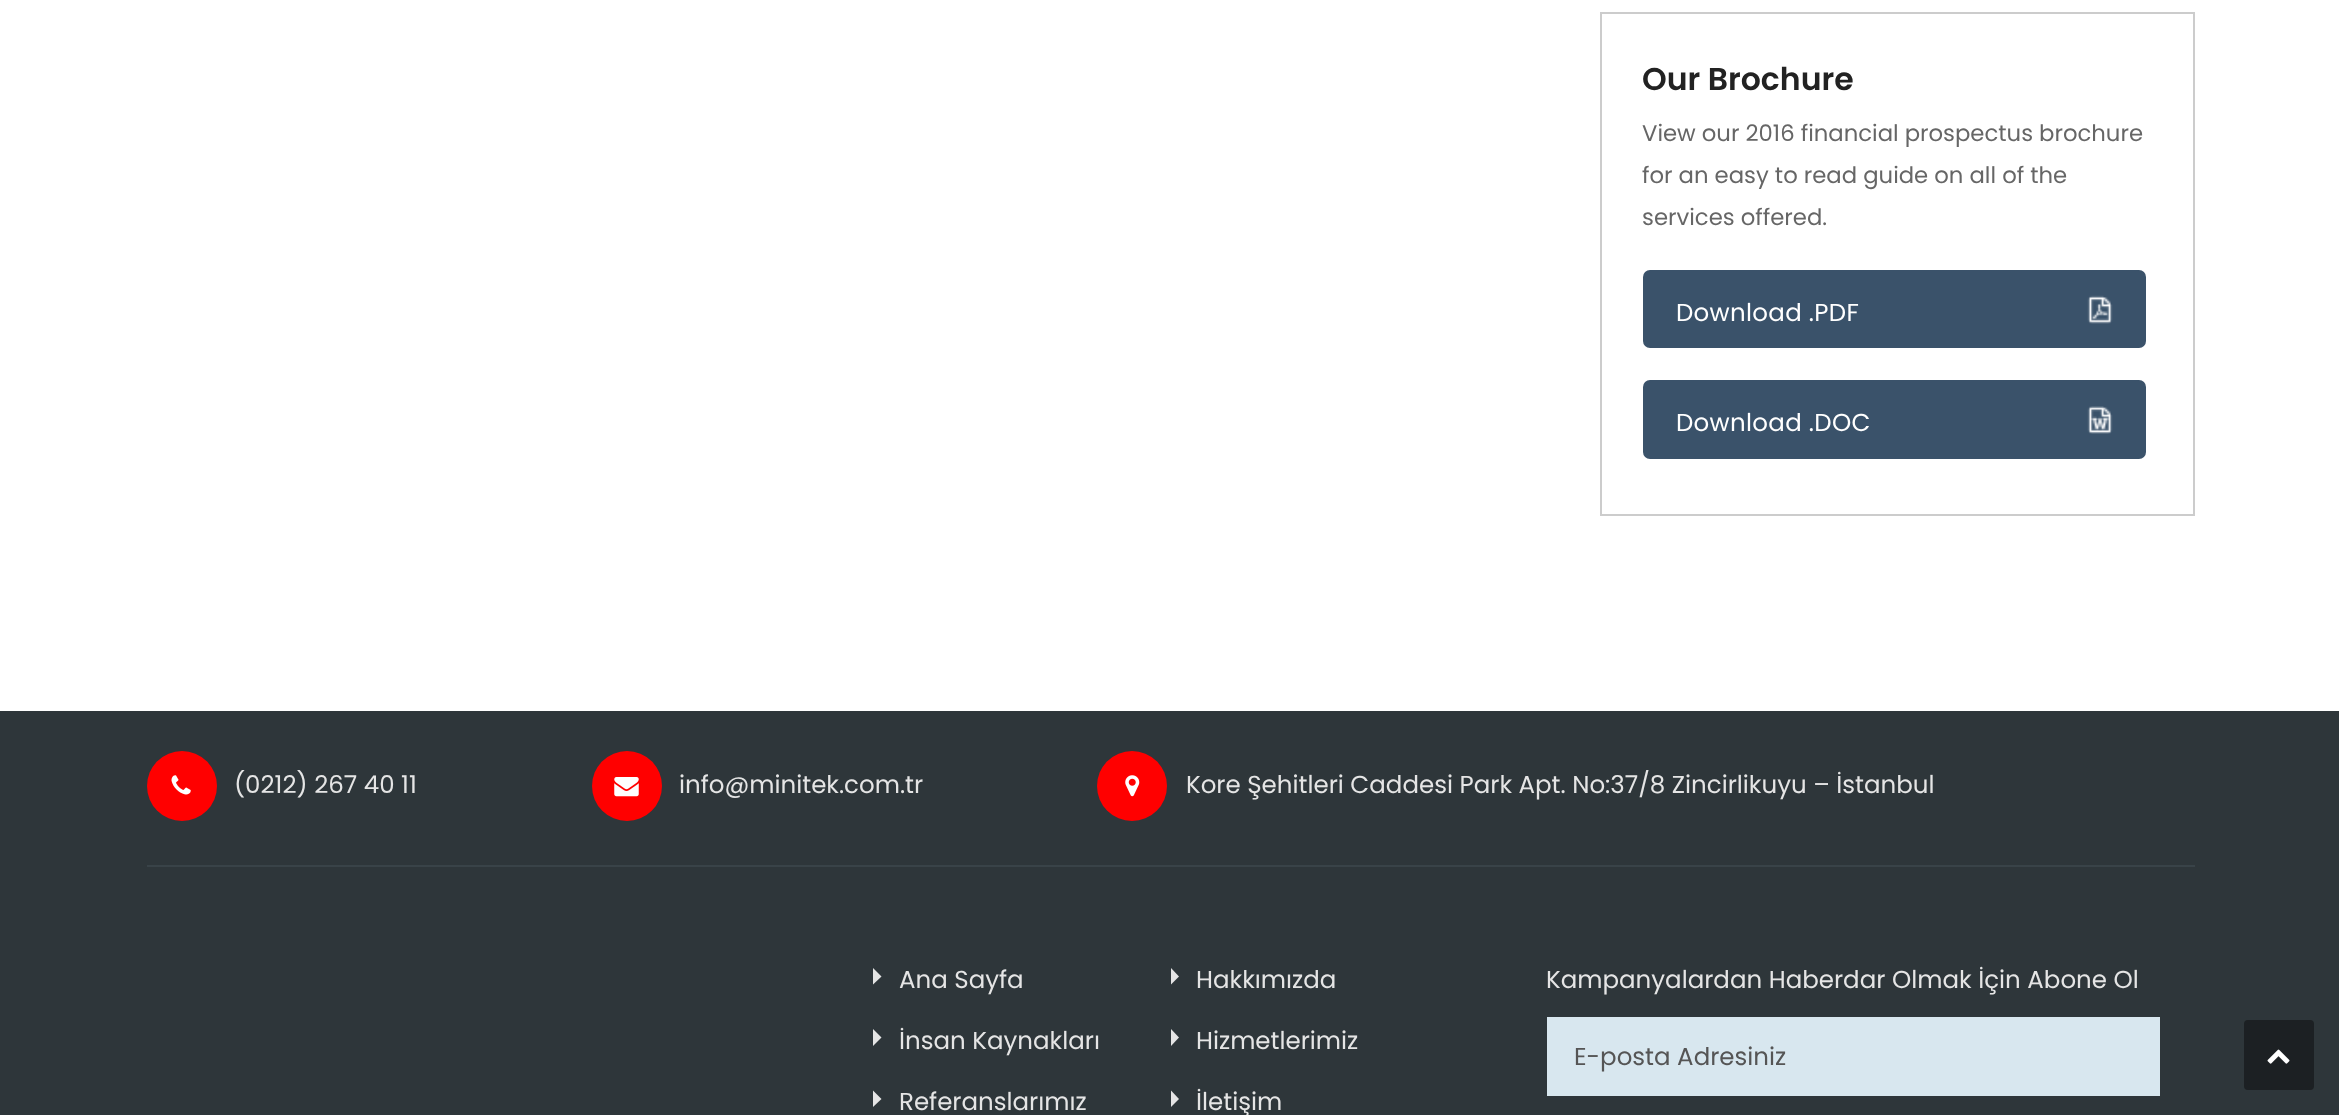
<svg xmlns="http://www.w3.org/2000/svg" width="2339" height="1115">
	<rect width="100%" height="100%" fill="#FFFFFF" />
	<rect x="1601" y="13" width="593" height="502" fill="none" stroke="#CCCCCC" stroke-width="2" />
	<text x="1642" y="90" font-family="Poppins" font-size="31.5" font-weight="600" fill="#222222">Our Brochure</text>
	<g font-family="Poppins" font-size="22.75" fill="#666666">
		<text x="1642" y="141">View our 2016 financial prospectus brochure</text>
		<text x="1642" y="183">for an easy to read guide on all of the</text>
		<text x="1642" y="225">services offered.</text>
	</g>
	<rect x="1643" y="270" width="503" height="78" rx="7" fill="#3A526A" />
	<text x="1676" y="321" font-family="Poppins" font-size="24.5" letter-spacing="0.3" fill="#FFFFFF">Download .PDF</text>
	<image x="2087" y="295" width="26" height="29" href="assets/img1.png" />
	<rect x="1643" y="380" width="503" height="79" rx="7" fill="#3A526A" />
	<text x="1676" y="431" font-family="Poppins" font-size="24.5" letter-spacing="0.3" fill="#FFFFFF">Download .DOC</text>
	<image x="2087" y="406" width="26" height="28" href="assets/img2.png" />
	<rect x="0" y="711" width="2339" height="404" fill="#2E363A" />
	<rect x="147" y="865" width="2048" height="2" fill="#394348" />
	<circle cx="182" cy="786" r="35" fill="#FF0000" />
	<image x="171" y="775" width="20" height="20" href="assets/img3.png" />
	<text x="234" y="793" font-family="Poppins" font-size="24.5" fill="#E5E5E5">(0212) 267 40 11</text>
	<circle cx="627" cy="786" r="35" fill="#FF0000" />
	<image x="614" y="777" width="25" height="20" href="assets/img4.png" />
	<text x="679" y="793" font-family="Poppins" font-size="24.5" fill="#E5E5E5">info@minitek.com.tr</text>
	<circle cx="1132" cy="786" r="35" fill="#FF0000" />
	<image x="1125" y="775" width="15" height="22" href="assets/img5.png" />
	<text x="1186" y="793" font-family="Poppins" font-size="24.5" fill="#E5E5E5">Kore Şehitleri Caddesi Park Apt. No:37/8 Zincirlikuyu – İstanbul</text>
	<path d="M873 968L881.5 976.5L873 984.5Z" fill="#E5E5E5" />
	<text x="899" y="988" font-family="Poppins" font-size="24.5" fill="#E5E5E5">Ana Sayfa</text>
	<path d="M1171 968L1179 976.5L1171 984.5Z" fill="#E5E5E5" />
	<text x="1196" y="988" font-family="Poppins" font-size="24.5" fill="#E5E5E5">Hakkımızda</text>
	<path d="M873 1029L881.5 1037.5L873 1046Z" fill="#E5E5E5" />
	<text x="899" y="1049" font-family="Poppins" font-size="24.5" fill="#E5E5E5">İnsan Kaynakları</text>
	<path d="M1171 1029L1179 1037.5L1171 1046Z" fill="#E5E5E5" />
	<text x="1196" y="1049" font-family="Poppins" font-size="24.5" fill="#E5E5E5">Hizmetlerimiz</text>
	<path d="M873 1090.5L881.5 1099L873 1107Z" fill="#E5E5E5" />
	<text x="899" y="1110" font-family="Poppins" font-size="24.5" fill="#E5E5E5">Referanslarımız</text>
	<path d="M1171 1090.5L1179 1099L1171 1107Z" fill="#E5E5E5" />
	<g font-family="Poppins" font-size="24.5" fill="#E5E5E5">
		<text x="1196" y="1110">İletişim</text>
		<text x="1546" y="988">Kampanyalardan Haberdar Olmak İçin Abone Ol</text>
	</g>
	<rect x="1547" y="1017" width="613" height="79" fill="#D8E7EF" />
	<text x="1574" y="1065" font-family="Poppins" font-size="24.5" fill="#555555">E-posta Adresiniz</text>
	<rect x="2244" y="1020" width="70" height="70" rx="4" fill="#1C2023" />
	<image x="2267" y="1049" width="23" height="15" href="assets/img6.png" />
</svg>
